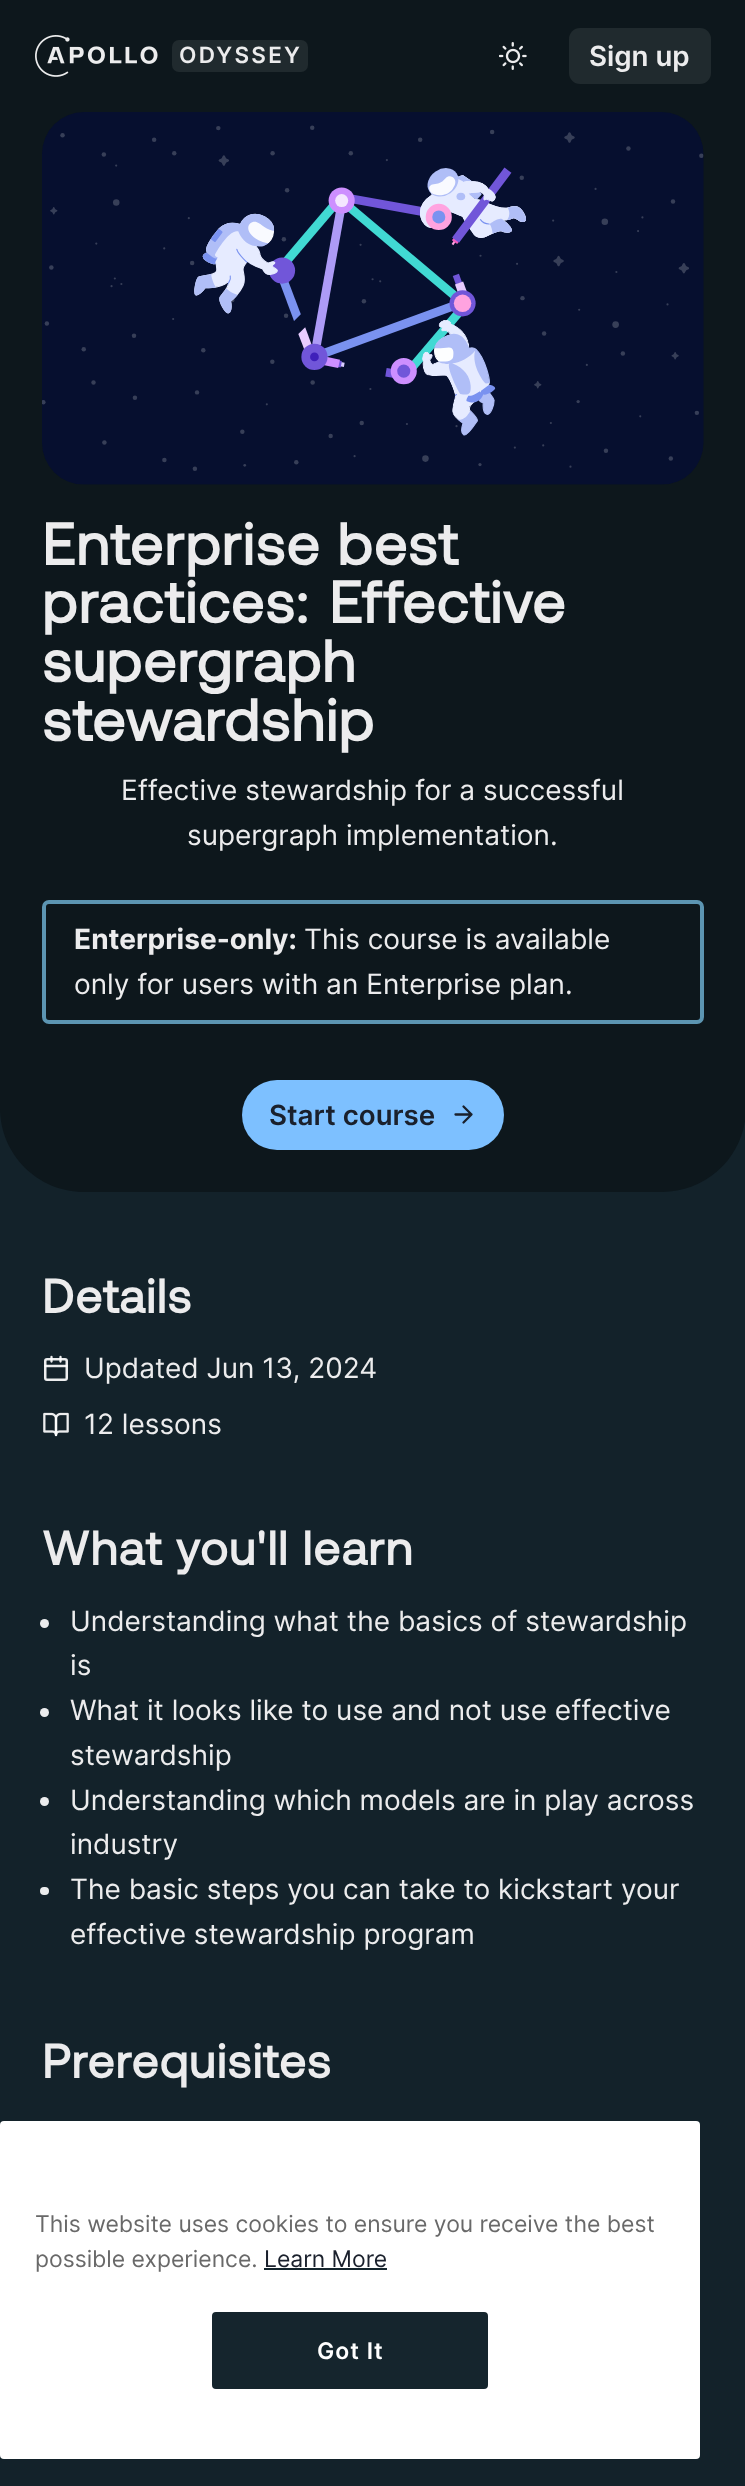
<svg xmlns="http://www.w3.org/2000/svg" width="745" height="2486">
	<rect width="100%" height="100%" fill="#13222A" />
	<rect x="0" y="0" width="745" height="112" fill="#0D171C" />
	<image x="35" y="35" width="123" height="42" href="assets/img1.png" />
	<rect x="172" y="40" width="136" height="32" rx="7" fill="#202A2E" />
	<text x="179" y="63" font-family="Inter" font-size="22.5" font-weight="600" letter-spacing="2.25" fill="#ECECED">ODYSSEY</text>
	<image x="499" y="42" width="28" height="28" href="assets/img2.png" />
	<rect x="569" y="28" width="142" height="56" rx="11" fill="#202A2E" />
	<text x="589" y="66" font-family="Inter" font-size="27.75" font-weight="600" fill="#ECECED">Sign up</text>
	<path d="M0 112H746V1108C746 1154.5 708.5 1192 662 1192H84C37.5 1192 0 1154.5 0 1108Z" fill="#0D171C" />
	<image x="42" y="112" width="662" height="373" href="assets/img3.png" />
	<g font-family="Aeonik" font-size="58.75" font-weight="700" letter-spacing="1.4" fill="#ECECED">
		<text x="42" y="565">Enterprise best</text>
		<text x="42" y="623" word-spacing="3">practices: Effective</text>
		<text x="42" y="682">supergraph</text>
		<text x="42" y="741">stewardship</text>
	</g>
	<g font-family="Inter" font-size="28" fill="#ECECED">
		<text x="121" y="800">Effective stewardship for a successful</text>
		<text x="187" y="845">supergraph implementation.</text>
	</g>
	<rect x="44" y="902" width="658" height="120" rx="5" fill="none" stroke="#5C95B2" stroke-width="4" />
	<text x="74" y="949" font-family="Inter" font-size="28" font-weight="700" fill="#ECECED">Enterprise-only:</text>
	<g font-family="Inter" font-size="28" fill="#ECECED">
		<text x="304" y="949">This course is available</text>
		<text x="74" y="994">only for users with an Enterprise plan.</text>
	</g>
	<rect x="242" y="1080" width="262" height="70" rx="35" fill="#7DC0FF" />
	<text x="269" y="1125" font-family="Inter" font-size="27.75" font-weight="600" fill="#1A202C">Start course</text>
	<path d="M455.5 1114.5H471.5M463.5 1106.5L471.5 1114.5L463.5 1122.5" fill="none" stroke="#1A202C" stroke-width="2.3" stroke-linecap="round" stroke-linejoin="round" />
	<text x="42" y="1313" font-family="Aeonik" font-size="47.5" font-weight="700" letter-spacing="1.4" fill="#ECECED">Details</text>
	<rect x="45.25" y="1359.25" width="21.5" height="20.5" rx="1.75" fill="none" stroke="#ECEDEE" stroke-width="2.5" />
	<path d="M60.5 1357V1361.5M51.5 1357V1361.5M45.5 1366H66.5" fill="none" stroke="#FFFFFF" stroke-opacity="0.92" stroke-width="2.3" stroke-linecap="round" stroke-linejoin="round" />
	<text x="84" y="1378" font-family="Inter" font-size="28" fill="#ECECED">Updated Jun 13, 2024</text>
	<image x="43" y="1412" width="26" height="25" href="assets/img4.png" />
	<text x="84" y="1434" font-family="Inter" font-size="28" fill="#ECECED">12 lessons</text>
	<text x="42" y="1565" font-family="Aeonik" font-size="47.5" font-weight="700" letter-spacing="1.4" fill="#ECECED">What you'll learn</text>
	<circle cx="44.5" cy="1623.5" r="4.5" fill="#ECEDEE" />
	<g font-family="Inter" font-size="28" fill="#ECECED">
		<text x="70" y="1631">Understanding what the basics of stewardship</text>
		<text x="70" y="1675">is</text>
	</g>
	<circle cx="44.5" cy="1712.5" r="4.5" fill="#ECEDEE" />
	<g font-family="Inter" font-size="28" fill="#ECECED">
		<text x="70" y="1720">What it looks like to use and not use effective</text>
		<text x="70" y="1765">stewardship</text>
	</g>
	<circle cx="44.5" cy="1801.5" r="4.5" fill="#ECEDEE" />
	<g font-family="Inter" font-size="28" fill="#ECECED">
		<text x="70" y="1810">Understanding which models are in play across</text>
		<text x="70" y="1854">industry</text>
	</g>
	<rect x="40" y="1887" width="9" height="8" rx="4" fill="#ECEDEE" />
	<g font-family="Inter" font-size="28" fill="#ECECED">
		<text x="70" y="1899">The basic steps you can take to kickstart your</text>
		<text x="70" y="1944">effective stewardship program</text>
	</g>
	<text x="42" y="2078" font-family="Aeonik" font-size="47.5" font-weight="700" letter-spacing="1.4" fill="#ECECED">Prerequisites</text>
	<rect x="0" y="2121" width="700" height="338" rx="4" fill="#FFFFFF" />
	<g font-family="Inter" font-size="22.95" fill="#696969">
		<text x="35" y="2232">This website uses cookies to ensure you receive the best</text>
		<text x="35" y="2267">possible experience.</text>
	</g>
	<text x="264" y="2267" font-family="Inter" font-size="22.95" fill="#1A202C">Learn More</text>
	<rect x="264" y="2268" width="123" height="2" fill="#15252D" />
	<rect x="213" y="2313" width="274" height="75" rx="3" fill="#15252D" stroke="#15252D" stroke-width="2" />
	<text x="317" y="2359" font-family="Inter" font-size="22.95" font-weight="600" letter-spacing="1" fill="#FFFFFF">Got It</text>
</svg>
